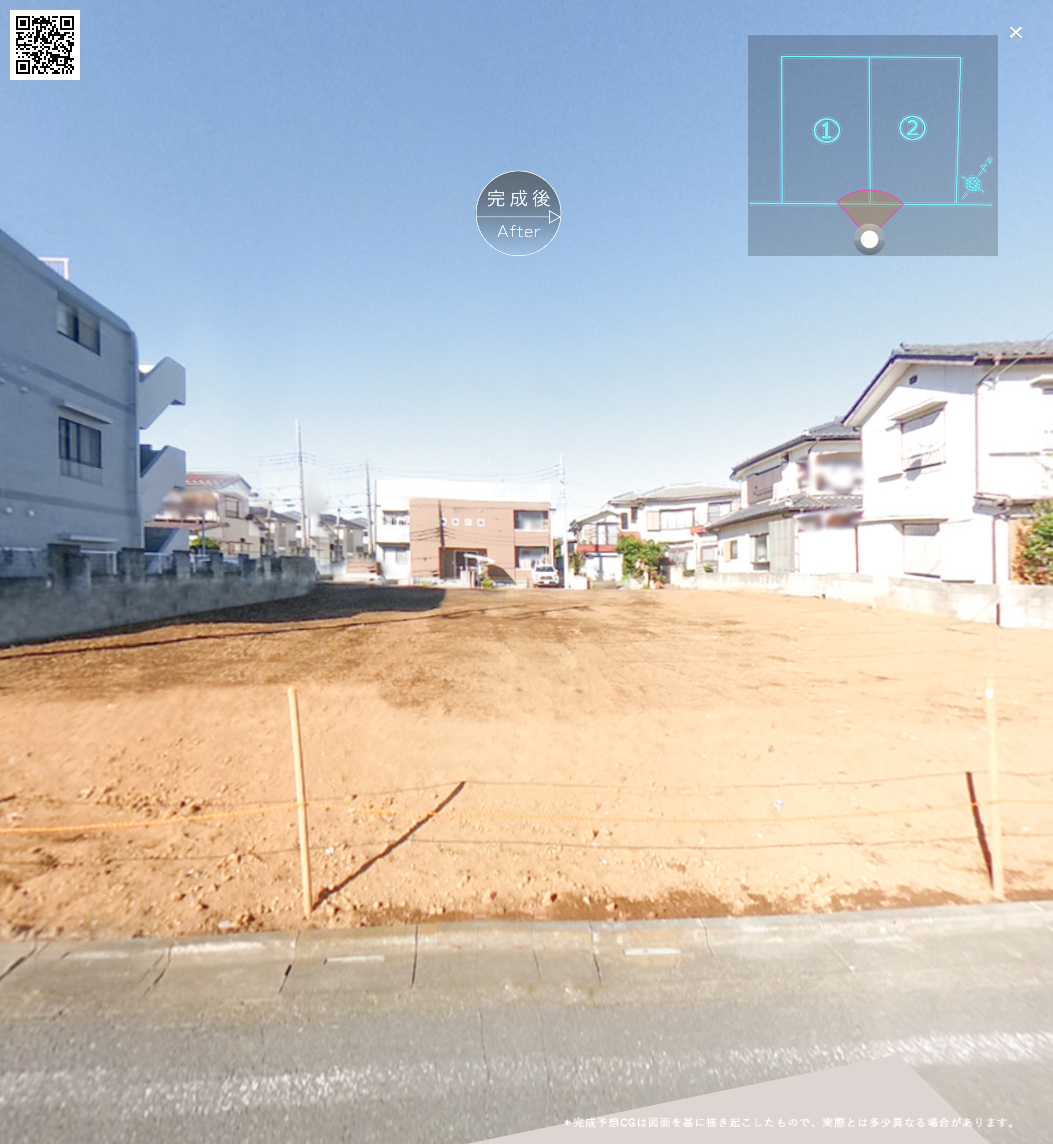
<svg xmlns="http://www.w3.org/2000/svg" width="1053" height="1144">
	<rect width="100%" height="100%" fill="#FFFFFF" />
	<image x="0" y="0" width="1053" height="1144" href="assets/img1.png" />
	<image x="10" y="10" width="70" height="70" href="assets/img2.png" />
	<image x="1009" y="26" width="14" height="13" href="assets/img3.png" />
	<image x="564" y="1117" width="449" height="11" href="assets/img4.png" />
	<image x="748" y="35" width="250" height="221" href="assets/img5.png" />
	<image x="836" y="189" width="68" height="45" href="assets/img6.png" />
	<image x="853" y="223" width="32" height="32" href="assets/img7.png" />
</svg>
